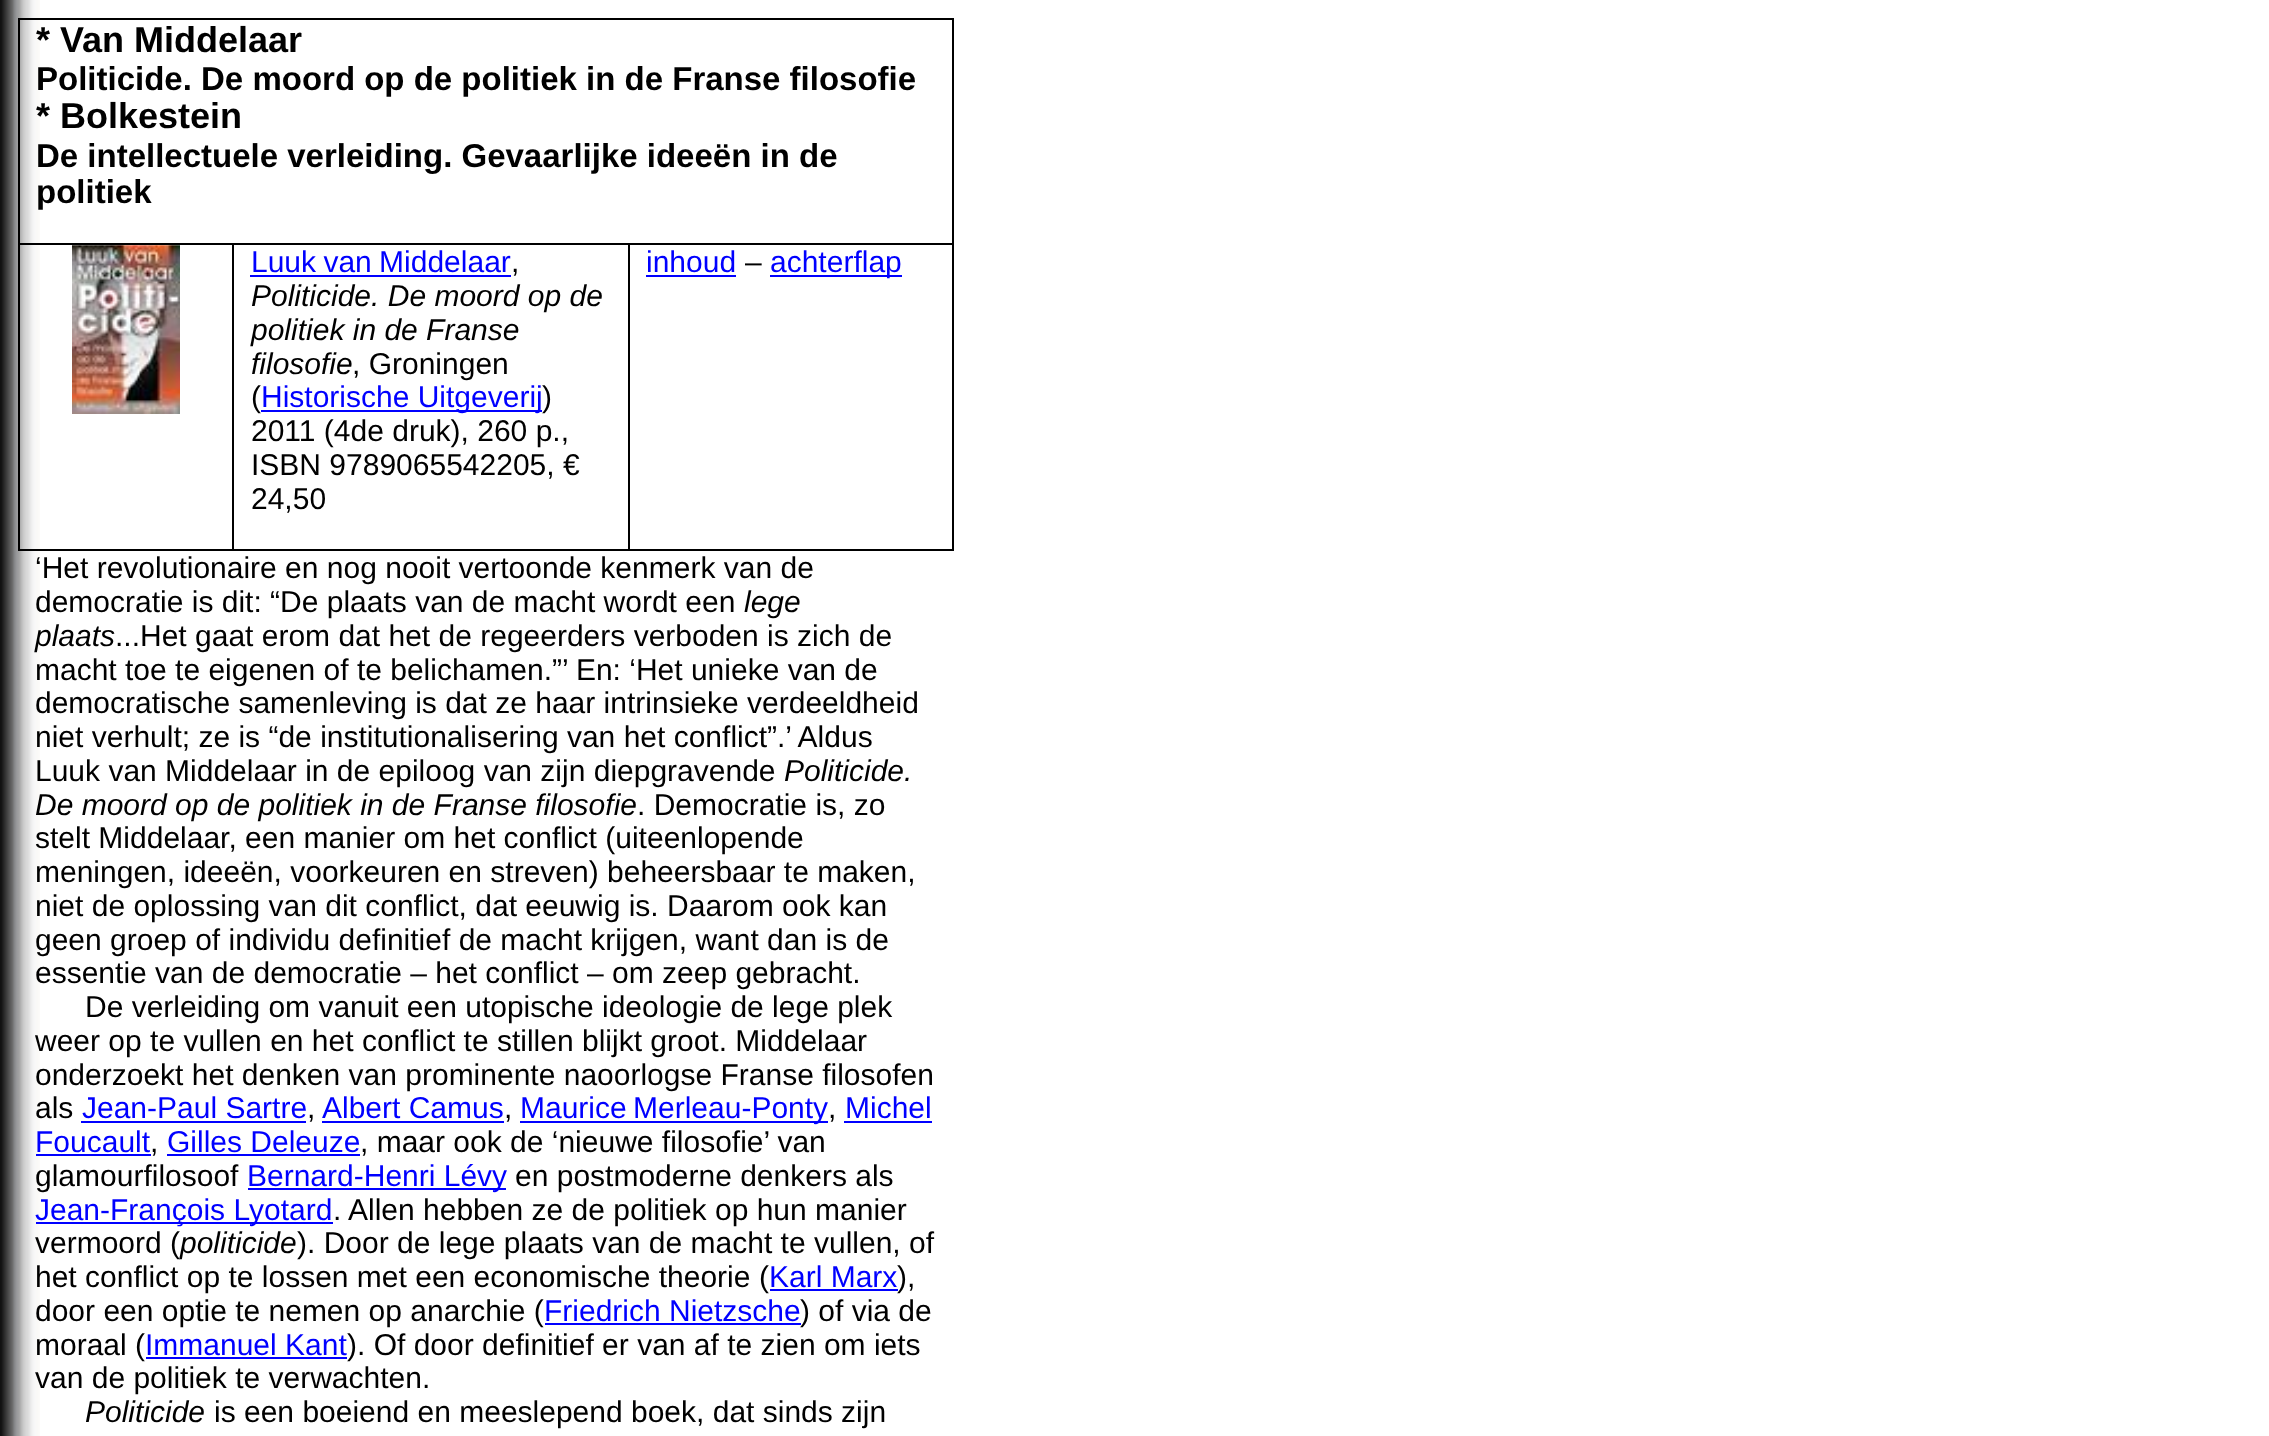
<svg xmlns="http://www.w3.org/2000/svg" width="2269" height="1436">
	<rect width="100%" height="100%" fill="#FFFFFF" />
	<image x="0" y="0" width="40" height="1436" href="assets/img1.png" />
	<rect x="18" y="18" width="936" height="2" fill="#000000" />
	<rect x="952" y="243" width="2" height="308" fill="#000000" />
	<rect x="952" y="18" width="2" height="227" fill="#000000" />
	<rect x="628" y="549" width="326" height="2" fill="#000000" />
	<rect x="628" y="243" width="2" height="308" fill="#000000" />
	<rect x="232" y="549" width="398" height="2" fill="#000000" />
	<rect x="232" y="243" width="2" height="308" fill="#000000" />
	<rect x="18" y="549" width="216" height="2" fill="#000000" />
	<rect x="18" y="243" width="2" height="308" fill="#000000" />
	<rect x="18" y="243" width="936" height="2" fill="#000000" />
	<rect x="18" y="18" width="2" height="227" fill="#000000" />
	<text x="36" y="52" font-family="Liberation Sans" font-size="36" font-weight="700" fill="#000000">* Van Middelaar</text>
	<text x="36" y="90" font-family="Liberation Sans" font-size="33" font-weight="700" fill="#000000">Politicide. De moord op de politiek in de Franse filosofie</text>
	<text x="36" y="128" font-family="Liberation Sans" font-size="36" font-weight="700" fill="#000000">* Bolkestein</text>
	<g font-family="Liberation Sans" font-size="33" font-weight="700" fill="#000000">
		<text x="36" y="167">De intellectuele verleiding. Gevaarlijke ideeën in de</text>
		<text x="36" y="203">politiek</text>
	</g>
	<image x="72" y="245" width="108" height="169" href="assets/img2.png" />
	<text x="251" y="272" word-spacing="-1" font-family="Liberation Sans" font-size="30" fill="#0000FF">Luuk van Middelaar</text>
	<rect x="250" y="275" width="261" height="2" fill="#0000FF" />
	<text x="511" y="272" font-family="Liberation Sans" font-size="30" fill="#000000">,</text>
	<g font-family="Liberation Sans" font-size="30" font-style="italic" fill="#000000">
		<text x="251" y="306">Politicide. De moord op de</text>
		<text x="251" y="340">politiek in de Franse</text>
		<text x="251" y="374">filosofie</text>
	</g>
	<g font-family="Liberation Sans" font-size="30" fill="#000000">
		<text x="352" y="374">, Groningen</text>
		<text x="251" y="407">(</text>
	</g>
	<rect x="261" y="410" width="281" height="2" fill="#0000FF" />
	<text x="261" y="407" font-family="Liberation Sans" font-size="30" fill="#0000FF">Historische Uitgeverij</text>
	<g font-family="Liberation Sans" font-size="30" fill="#000000">
		<text x="542" y="407">)</text>
		<text x="251" y="441">2011 (4de druk), 260 p.,</text>
		<text x="251" y="475">ISBN 9789065542205, €</text>
		<text x="251" y="509">24,50</text>
	</g>
	<text x="646" y="272" font-family="Liberation Sans" font-size="30" fill="#0000FF">inhoud</text>
	<rect x="646" y="275" width="90" height="2" fill="#0000FF" />
	<text x="745" y="272" font-family="Liberation Sans" font-size="30" fill="#000000">–</text>
	<rect x="770" y="275" width="132" height="2" fill="#0000FF" />
	<text x="770" y="272" font-family="Liberation Sans" font-size="30" fill="#0000FF">achterflap</text>
	<g font-family="Liberation Sans" font-size="30" fill="#000000">
		<text x="35" y="578">‘Het revolutionaire en nog nooit vertoonde kenmerk van de</text>
		<text x="35" y="612">democratie is dit: “De plaats van de macht wordt een</text>
	</g>
	<g font-family="Liberation Sans" font-size="30" font-style="italic" fill="#000000">
		<text x="744" y="612">lege</text>
		<text x="35" y="646">plaats</text>
	</g>
	<g font-family="Liberation Sans" font-size="30" fill="#000000">
		<text x="115" y="646">...Het gaat erom dat het de regeerders verboden is zich de</text>
		<text x="35" y="680">macht toe te eigenen of te belichamen.”’ En: ‘Het unieke van de</text>
		<text x="35" y="713">democratische samenleving is dat ze haar intrinsieke verdeeldheid</text>
		<text x="35" y="747">niet verhult; ze is “de institutionalisering van het conflict”.’ Aldus</text>
		<text x="35" y="781">Luuk van Middelaar in de epiloog van zijn diepgravende</text>
	</g>
	<g font-family="Liberation Sans" font-size="30" font-style="italic" fill="#000000">
		<text x="784" y="781">Politicide.</text>
		<text x="35" y="815">De moord op de politiek in de Franse filosofie</text>
	</g>
	<g font-family="Liberation Sans" font-size="30" fill="#000000">
		<text x="637" y="815">. Democratie is, zo</text>
		<text x="35" y="848">stelt Middelaar, een manier om het conflict (uiteenlopende</text>
		<text x="35" y="882">meningen, ideeën, voorkeuren en streven) beheersbaar te maken,</text>
		<text x="35" y="916">niet de oplossing van dit conflict, dat eeuwig is. Daarom ook kan</text>
		<text x="35" y="950">geen groep of individu definitief de macht krijgen, want dan is de</text>
		<text x="35" y="983">essentie van de democratie – het conflict – om zeep gebracht.</text>
		<text x="85" y="1017">De verleiding om vanuit een utopische ideologie de lege plek</text>
		<text x="35" y="1051">weer op te vullen en het conflict te stillen blijkt groot. Middelaar</text>
		<text x="35" y="1085">onderzoekt het denken van prominente naoorlogse Franse filosofen</text>
		<text x="35" y="1118">als</text>
	</g>
	<text x="82" y="1118" font-family="Liberation Sans" font-size="30" fill="#0000FF">Jean-Paul Sartre</text>
	<rect x="81" y="1121" width="225" height="2" fill="#0000FF" />
	<text x="307" y="1118" font-family="Liberation Sans" font-size="30" fill="#000000">,</text>
	<text x="322" y="1118" font-family="Liberation Sans" font-size="30" fill="#0000FF">Albert Camus</text>
	<rect x="322" y="1121" width="182" height="2" fill="#0000FF" />
	<text x="504" y="1118" font-family="Liberation Sans" font-size="30" fill="#000000">,</text>
	<rect x="520" y="1121" width="308" height="2" fill="#0000FF" />
	<text x="520" y="1118" word-spacing="-2" font-family="Liberation Sans" font-size="30" fill="#0000FF">Maurice Merleau-Ponty</text>
	<text x="828" y="1118" font-family="Liberation Sans" font-size="30" fill="#000000">,</text>
	<text x="845" y="1118" font-family="Liberation Sans" font-size="30" fill="#0000FF">Michel</text>
	<rect x="844" y="1121" width="88" height="2" fill="#0000FF" />
	<text x="35" y="1152" font-family="Liberation Sans" font-size="30" fill="#0000FF">Foucault</text>
	<rect x="36" y="1154" width="115" height="2" fill="#0000FF" />
	<text x="150" y="1152" font-family="Liberation Sans" font-size="30" fill="#000000">,</text>
	<text x="167" y="1152" font-family="Liberation Sans" font-size="30" fill="#0000FF">Gilles Deleuze</text>
	<rect x="167" y="1154" width="193" height="2" fill="#0000FF" />
	<g font-family="Liberation Sans" font-size="30" fill="#000000">
		<text x="360" y="1152">, maar ook de ‘nieuwe filosofie’ van</text>
		<text x="35" y="1186">glamourfilosoof</text>
	</g>
	<rect x="248" y="1188" width="258" height="2" fill="#0000FF" />
	<text x="247" y="1186" font-family="Liberation Sans" font-size="30" fill="#0000FF">Bernard-Henri Lévy</text>
	<text x="515" y="1186" font-family="Liberation Sans" font-size="30" fill="#000000">en postmoderne denkers als</text>
	<rect x="36" y="1222" width="297" height="2" fill="#0000FF" />
	<text x="35" y="1220" font-family="Liberation Sans" font-size="30" fill="#0000FF">Jean-François Lyotard</text>
	<g font-family="Liberation Sans" font-size="30" fill="#000000">
		<text x="333" y="1220">. Allen hebben ze de politiek op hun manier</text>
		<text x="35" y="1253">vermoord (</text>
	</g>
	<text x="180" y="1253" font-family="Liberation Sans" font-size="30" font-style="italic" fill="#000000">politicide</text>
	<g font-family="Liberation Sans" font-size="30" fill="#000000">
		<text x="297" y="1253">). Door de lege plaats van de macht te vullen, of</text>
		<text x="35" y="1287">het conflict op te lossen met een economische theorie</text>
		<text x="759" y="1287">(</text>
	</g>
	<text x="769" y="1287" font-family="Liberation Sans" font-size="30" fill="#0000FF">Karl Marx</text>
	<rect x="770" y="1289" width="128" height="2" fill="#0000FF" />
	<g font-family="Liberation Sans" font-size="30" fill="#000000">
		<text x="897" y="1287">),</text>
		<text x="35" y="1321">door een optie te nemen op anarchie (</text>
	</g>
	<text x="544" y="1321" font-family="Liberation Sans" font-size="30" fill="#0000FF">Friedrich Nietzsche</text>
	<rect x="545" y="1323" width="256" height="2" fill="#0000FF" />
	<g font-family="Liberation Sans" font-size="30" fill="#000000">
		<text x="800" y="1321">) of via de</text>
		<text x="35" y="1355">moraal (</text>
	</g>
	<text x="145" y="1355" font-family="Liberation Sans" font-size="30" fill="#0000FF">Immanuel Kant</text>
	<rect x="146" y="1357" width="201" height="2" fill="#0000FF" />
	<g font-family="Liberation Sans" font-size="30" fill="#000000">
		<text x="347" y="1355">). Of door definitief er van af te zien om iets</text>
		<text x="35" y="1388">van de politiek te verwachten.</text>
	</g>
	<text x="85" y="1422" font-family="Liberation Sans" font-size="30" font-style="italic" fill="#000000">Politicide</text>
	<text x="214" y="1422" font-family="Liberation Sans" font-size="30" fill="#000000">is een boeiend en meeslepend boek, dat sinds zijn</text>
</svg>
